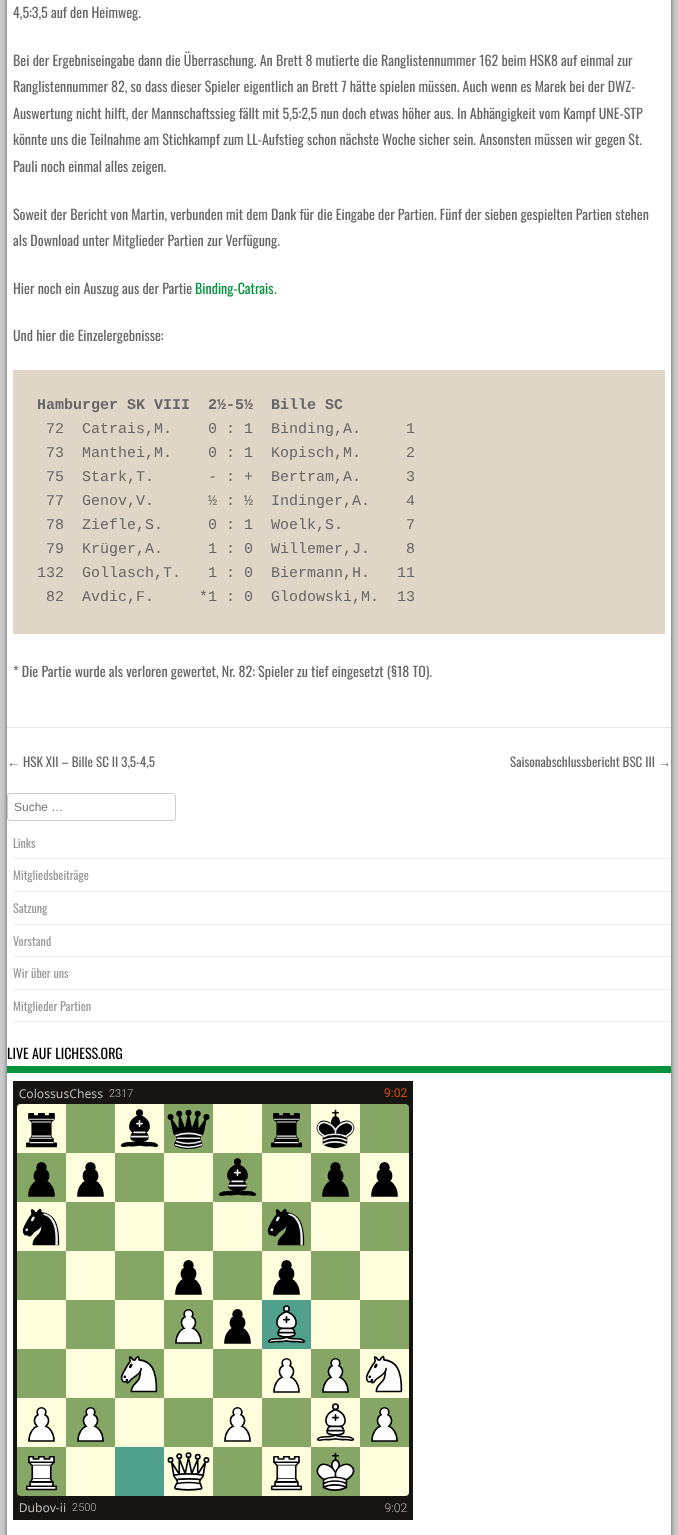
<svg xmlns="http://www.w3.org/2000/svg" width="678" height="1535">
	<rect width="100%" height="100%" fill="#C9C9C9" />
	<rect x="7" y="-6" width="664" height="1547" fill="#000000" fill-opacity="0.6" filter="blur(2px)" />
	<rect x="7" y="0" width="664" height="1535" fill="#FFFFFF" />
	<rect x="7" y="727" width="664" height="1" fill="#E6E6E6" />
	<g font-family="Oswald" font-size="14" fill="#666666">
		<text x="13" y="18">4,5:3,5 auf den Heimweg.</text>
		<text x="13" y="66">Bei der Ergebniseingabe dann die Überraschung. An Brett 8 mutierte die Ranglistennummer 162 beim HSK8 auf einmal zur</text>
		<text x="13" y="92">Ranglistennummer 82, so dass dieser Spieler eigentlich an Brett 7 hätte spielen müssen. Auch wenn es Marek bei der DWZ-</text>
		<text x="13" y="119">Auswertung nicht hilft, der Mannschaftssieg fällt mit 5,5:2,5 nun doch etwas höher aus. In Abhängigkeit vom Kampf UNE-STP</text>
		<text x="13" y="145">könnte uns die Teilnahme am Stichkampf zum LL-Aufstieg schon nächste Woche sicher sein. Ansonsten müssen wir gegen St.</text>
		<text x="13" y="172">Pauli noch einmal alles zeigen.</text>
		<text x="13" y="220">Soweit der Bericht von Martin, verbunden mit dem Dank für die Eingabe der Partien. Fünf der sieben gespielten Partien stehen</text>
		<text x="13" y="246">als Download unter Mitglieder Partien zur Verfügung.</text>
		<text x="13" y="294">Hier noch ein Auszug aus der Partie</text>
	</g>
	<text x="195" y="294" font-family="Oswald" font-size="14" fill="#04933D">Binding-Catrais</text>
	<g font-family="Oswald" font-size="14" fill="#666666">
		<text x="274" y="294">.</text>
		<text x="13" y="341">Und hier die Einzelergebnisse:</text>
	</g>
	<rect x="13" y="370" width="652" height="264" fill="#DFD6C7" />
	<text x="37" y="409" font-family="Liberation Mono" font-size="15" font-weight="700" fill="#666666" xml:space="preserve">Hamburger SK VIII  2½-5½  Bille SC</text>
	<g font-family="Liberation Mono" font-size="15" fill="#666666">
		<text x="46" y="433" xml:space="preserve">72  Catrais,M.    0 : 1  Binding,A.     1</text>
		<text x="46" y="457" xml:space="preserve">73  Manthei,M.    0 : 1  Kopisch,M.     2</text>
		<text x="46" y="481" xml:space="preserve">75  Stark,T.      - : +  Bertram,A.     3</text>
		<text x="46" y="505" xml:space="preserve">77  Genov,V.      ½ : ½  Indinger,A.    4</text>
		<text x="46" y="529" xml:space="preserve">78  Ziefle,S.     0 : 1  Woelk,S.       7</text>
		<text x="46" y="553" xml:space="preserve">79  Krüger,A.     1 : 0  Willemer,J.    8</text>
		<text x="37" y="577" xml:space="preserve">132  Gollasch,T.   1 : 0  Biermann,H.   11</text>
		<text x="46" y="601" xml:space="preserve">82  Avdic,F.     *1 : 0  Glodowski,M.  13</text>
	</g>
	<text x="13" y="677" font-family="Oswald" font-size="14" fill="#666666">* Die Partie wurde als verloren gewertet, Nr. 82: Spieler zu tief eingesetzt (§18 TO).</text>
	<text x="7" y="767" font-family="Liberation Sans" font-size="13" fill="#666666">←</text>
	<g font-family="Oswald" font-size="13" fill="#666666">
		<text x="23" y="767">HSK XII – Bille SC II 3,5-4,5</text>
		<text x="510" y="767">Saisonabschlussbericht BSC III</text>
	</g>
	<text x="658" y="767" font-family="Liberation Sans" font-size="13" fill="#666666">→</text>
	<rect x="7.5" y="793.5" width="168" height="27" rx="2.5" fill="none" stroke="#CCCCCC" />
	<text x="14" y="811" font-family="Liberation Sans" font-size="12" fill="#757575">Suche …</text>
	<rect x="13" y="858" width="658" height="1" fill="#EFEFEF" />
	<text x="13" y="848" font-family="Oswald" font-size="12" fill="#999999">Links</text>
	<rect x="13" y="891" width="658" height="1" fill="#EFEFEF" />
	<text x="13" y="880" font-family="Oswald" font-size="12" fill="#999999">Mitgliedsbeiträge</text>
	<rect x="13" y="924" width="658" height="1" fill="#EFEFEF" />
	<text x="13" y="913" font-family="Oswald" font-size="12" fill="#999999">Satzung</text>
	<rect x="13" y="956" width="658" height="1" fill="#EFEFEF" />
	<text x="13" y="946" font-family="Oswald" font-size="12" fill="#999999">Vorstand</text>
	<rect x="13" y="989" width="658" height="1" fill="#EFEFEF" />
	<text x="13" y="978" font-family="Oswald" font-size="12" fill="#999999">Wir über uns</text>
	<rect x="13" y="1021" width="658" height="1" fill="#EFEFEF" />
	<text x="13" y="1011" font-family="Oswald" font-size="12" fill="#999999">Mitglieder Partien</text>
	<rect x="7" y="1066" width="664" height="7" fill="#04933D" />
	<text x="7" y="1059" font-family="Oswald" font-size="14" fill="#000000">LIVE AUF LICHESS.ORG</text>
	<image x="13" y="1081" width="400" height="439" href="assets/img1.png" />
</svg>
